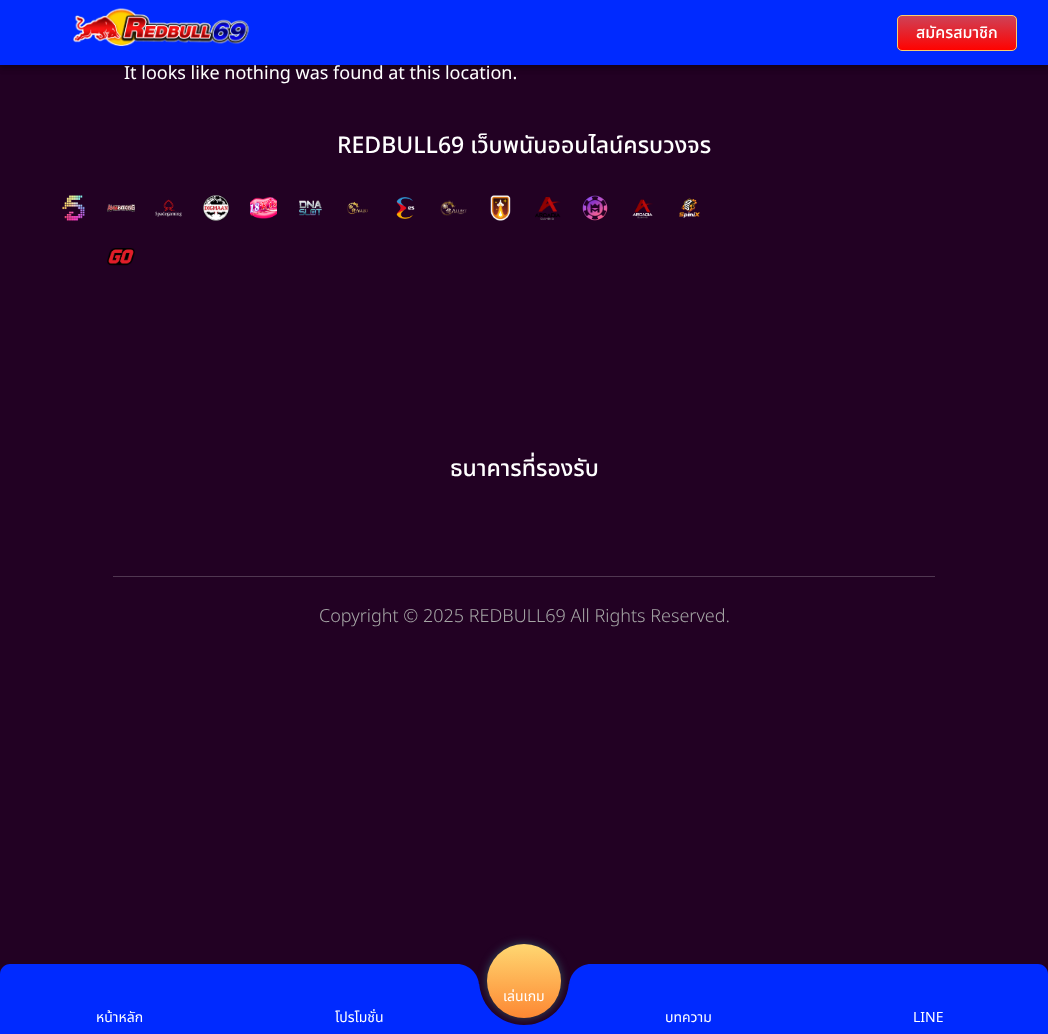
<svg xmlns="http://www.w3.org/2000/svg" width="1048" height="1034">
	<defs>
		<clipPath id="clip1"><rect x="897" y="15" width="120" height="36" rx="5" /></clipPath>
		<linearGradient id="g1" gradientUnits="userSpaceOnUse" x1="957" y1="16" x2="957" y2="50"><stop offset="0" stop-color="#CE4257" /><stop offset="1" stop-color="#FF0200" /></linearGradient>
		<linearGradient id="g2" gradientUnits="userSpaceOnUse" x1="524" y1="944" x2="524" y2="1018"><stop offset="0" stop-color="#FFD771" /><stop offset="1" stop-color="#FD8833" /></linearGradient>
		<clipPath id="clip2"><rect x="389" y="984" width="270" height="50" /></clipPath>
	</defs>
	<rect width="100%" height="100%" fill="#220123" />
	<rect x="0" y="1" width="1048" height="65" fill="#000000" fill-opacity="0.12" filter="blur(5px)" />
	<rect x="0" y="4" width="1048" height="65" fill="#000000" fill-opacity="0.14" filter="blur(2.5px)" />
	<rect x="1" y="3" width="1046" height="63" fill="#000000" fill-opacity="0.2" filter="blur(2px)" />
	<rect x="0" y="0" width="1048" height="65" fill="#002AFF" />
	<image x="73" y="8" width="177" height="39" href="assets/img1.png" />
	<g clip-path="url(#clip1)">
		<rect x="897" y="16" width="120" height="34" fill="url(#g1)" />
	</g>
	<rect x="897.5" y="15.5" width="119" height="35" rx="4.5" fill="none" stroke="#FACD6D" />
	<text x="916" y="38" font-family="Noto Sans Thai" font-size="16" font-weight="500" fill="#FFFFFF">สมัครสมาชิก</text>
	<text x="124" y="79" font-family="Noto Sans Thai" font-size="18" fill="#FFFFFF">It looks like nothing was found at this location.</text>
	<text x="337" y="153" font-family="Noto Sans Thai" font-size="23" font-weight="500" fill="#FFFFFF">REDBULL69 เว็บพนันออนไลน์ครบวงจร</text>
	<image x="62" y="195" width="23" height="26" href="assets/img2.png" />
	<image x="107" y="204" width="28" height="8" href="assets/img3.png" />
	<image x="155" y="199" width="27" height="18" href="assets/img4.png" />
	<image x="203" y="195" width="26" height="26" href="assets/img5.png" />
	<image x="250" y="197" width="27" height="22" href="assets/img6.png" />
	<image x="299" y="200" width="23" height="16" href="assets/img7.png" />
	<image x="347" y="201" width="21" height="13" href="assets/img8.png" />
	<image x="396" y="197" width="19" height="22" href="assets/img9.png" />
	<image x="440" y="200" width="27" height="16" href="assets/img10.png" />
	<image x="490" y="195" width="21" height="26" href="assets/img11.png" />
	<image x="535" y="197" width="26" height="23" href="assets/img12.png" />
	<image x="582" y="195" width="26" height="26" href="assets/img13.png" />
	<image x="632" y="199" width="21" height="20" href="assets/img14.png" />
	<image x="679" y="198" width="21" height="20" href="assets/img15.png" />
	<image x="107" y="248" width="28" height="18" href="assets/img16.png" />
	<text x="450" y="476" font-family="Noto Sans Thai" font-size="23" font-weight="500" fill="#FFFFFF">ธนาคารที่รองรับ</text>
	<rect x="113" y="576" width="822" height="1" fill="#503751" />
	<text x="319" y="622" font-family="Noto Sans Thai" font-size="18" font-weight="300" fill="#A5A5A5">Copyright © 2025 REDBULL69 All Rights Reserved.</text>
	<rect x="487" y="944" width="74" height="74" rx="37" fill="#43A093" fill-opacity="0.5" filter="blur(5px)" />
	<circle cx="524" cy="981" r="37" fill="url(#g2)" />
	<text x="503" y="1001" font-family="Noto Sans Thai" font-size="14" fill="#FFFFFF">เล่นเกม</text>
	<g clip-path="url(#clip2)">
		<path d="M389 926H749V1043H389ZM479 980C479 1005 499 1025 524 1025C549 1025 569 1005 569 980C569 955 549 935 524 935C499 935 479 955 479 980Z" fill="#002AFF" />
	</g>
	<path d="M10 964H457C469 964 479 974 479 986V1034H0V974C0 968.5 4.5 964 10 964Z" fill="#002AFF" />
	<g font-family="Noto Sans Thai" font-size="14" fill="#FFFFFF">
		<text x="96" y="1022">หน้าหลัก</text>
		<text x="335" y="1022">โปรโมชั่น</text>
	</g>
	<path d="M591 964H1038C1043.5 964 1048 968.5 1048 974V1034H569V986C569 974 579 964 591 964Z" fill="#002AFF" />
	<g font-family="Noto Sans Thai" font-size="14" fill="#FFFFFF">
		<text x="665" y="1022">บทความ</text>
		<text x="913" y="1022">LINE</text>
	</g>
</svg>
